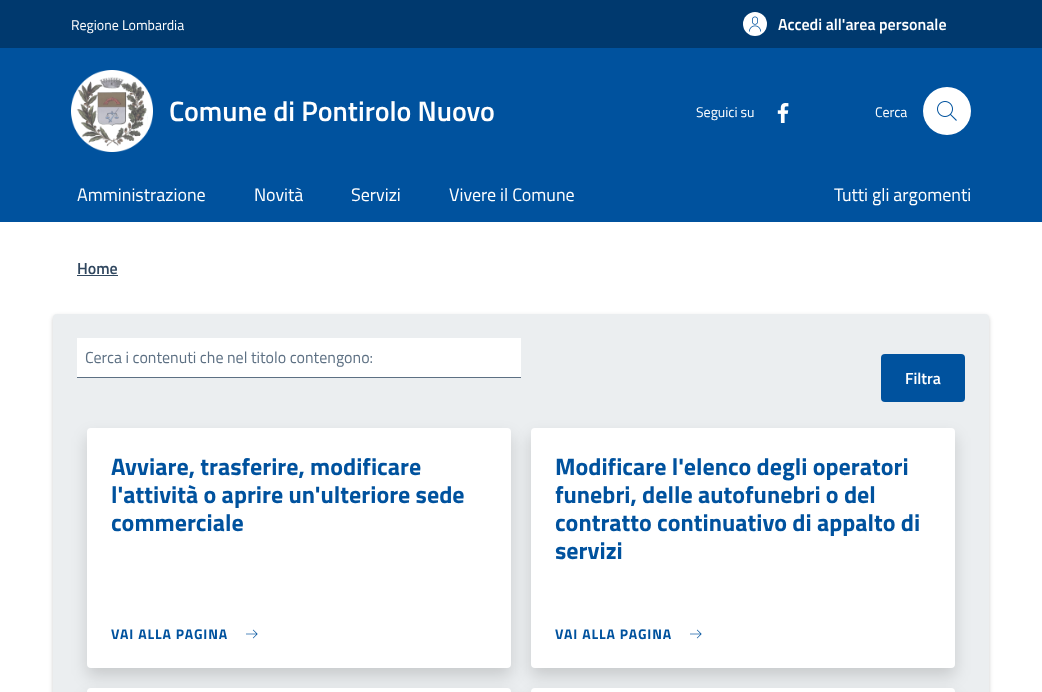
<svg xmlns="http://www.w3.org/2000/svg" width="1042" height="692">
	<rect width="100%" height="100%" fill="#FFFFFF" />
	<rect x="0" y="0" width="1042" height="48" fill="#00396E" />
	<text x="71" y="30" font-family="Titillium Web" font-size="14" fill="#FFFFFF">Regione Lombardia</text>
	<circle cx="755" cy="24" r="12" fill="#FFFFFF" />
	<image x="749" y="16" width="12" height="16" href="assets/img1.png" />
	<text x="778" y="30" font-family="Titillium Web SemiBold" font-size="16" font-weight="600" fill="#FFFFFF">Accedi all'area personale</text>
	<rect x="0" y="48" width="1042" height="174" fill="#00529E" />
	<image x="71" y="70" width="82" height="82" href="assets/img2.png" />
	<text x="169" y="121" font-family="Titillium Web SemiBold" font-size="28" font-weight="600" fill="#FFFFFF">Comune di Pontirolo Nuovo</text>
	<text x="696" y="117" font-family="Titillium Web" font-size="14" fill="#FFFFFF">Seguici su</text>
	<image x="777" y="103" width="12" height="20" href="assets/img3.png" />
	<text x="875" y="117" font-family="Titillium Web" font-size="14" fill="#FFFFFF">Cerca</text>
	<circle cx="947" cy="111" r="24" fill="#FFFFFF" />
	<image x="937" y="101" width="20" height="20" href="assets/img4.png" />
	<g font-family="Titillium Web" font-size="18" fill="#FFFFFF">
		<text x="77" y="201">Amministrazione</text>
		<text x="254" y="201">Novità</text>
		<text x="351" y="201">Servizi</text>
		<text x="449" y="201">Vivere il Comune</text>
		<text x="834" y="201">Tutti gli argomenti</text>
	</g>
	<text x="77" y="274" font-family="Titillium Web SemiBold" font-size="16" font-weight="600" fill="#30475F">Home</text>
	<rect x="77" y="275" width="41" height="1" fill="#30475F" />
	<rect x="53" y="316" width="936" height="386" rx="4" fill="#000000" fill-opacity="0.2" filter="blur(2px)" />
	<rect x="53" y="314" width="936" height="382" rx="4" fill="#EBEEF0" />
	<rect x="77" y="338" width="444" height="39" fill="#FFFFFF" />
	<rect x="77" y="377" width="444" height="1" fill="#5D7083" />
	<text x="85" y="363" font-family="Titillium Web" font-size="16" fill="#5D7083">Cerca i contenuti che nel titolo contengono:</text>
	<rect x="881" y="354" width="84" height="48" rx="4" fill="#00529E" />
	<text x="905" y="384" font-family="Titillium Web SemiBold" font-size="16" font-weight="600" fill="#FFFFFF">Filtra</text>
	<rect x="87" y="436" width="424" height="240" rx="4" fill="#000000" fill-opacity="0.15" filter="blur(8px)" />
	<rect x="87" y="428" width="424" height="240" rx="4" fill="#FFFFFF" />
	<g font-family="Titillium Web" font-size="24" font-weight="700" fill="#00529E">
		<text x="111" y="475">Avviare, trasferire, modificare</text>
		<text x="111" y="503">l'attività o aprire un'ulteriore sede</text>
		<text x="111" y="531">commerciale</text>
	</g>
	<text x="111" y="639" font-family="Titillium Web" font-size="14" font-weight="700" letter-spacing="0.9" fill="#00529E">VAI ALLA PAGINA</text>
	<image x="246" y="629" width="12" height="10" href="assets/img5.png" />
	<rect x="531" y="436" width="424" height="240" rx="4" fill="#000000" fill-opacity="0.15" filter="blur(8px)" />
	<rect x="531" y="428" width="424" height="240" rx="4" fill="#FFFFFF" />
	<g font-family="Titillium Web" font-size="24" font-weight="700" fill="#00529E">
		<text x="555" y="475">Modificare l'elenco degli operatori</text>
		<text x="555" y="503">funebri, delle autofunebri o del</text>
		<text x="555" y="531">contratto continuativo di appalto di</text>
		<text x="555" y="559">servizi</text>
	</g>
	<text x="555" y="639" font-family="Titillium Web" font-size="14" font-weight="700" letter-spacing="0.9" fill="#00529E">VAI ALLA PAGINA</text>
	<image x="690" y="629" width="12" height="10" href="assets/img5.png" />
	<rect x="87" y="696" width="424" height="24" rx="4" fill="#000000" fill-opacity="0.15" filter="blur(8px)" />
	<rect x="87" y="688" width="424" height="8" rx="4" fill="#FFFFFF" />
	<rect x="531" y="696" width="424" height="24" rx="4" fill="#000000" fill-opacity="0.15" filter="blur(8px)" />
	<rect x="531" y="688" width="424" height="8" rx="4" fill="#FFFFFF" />
</svg>
